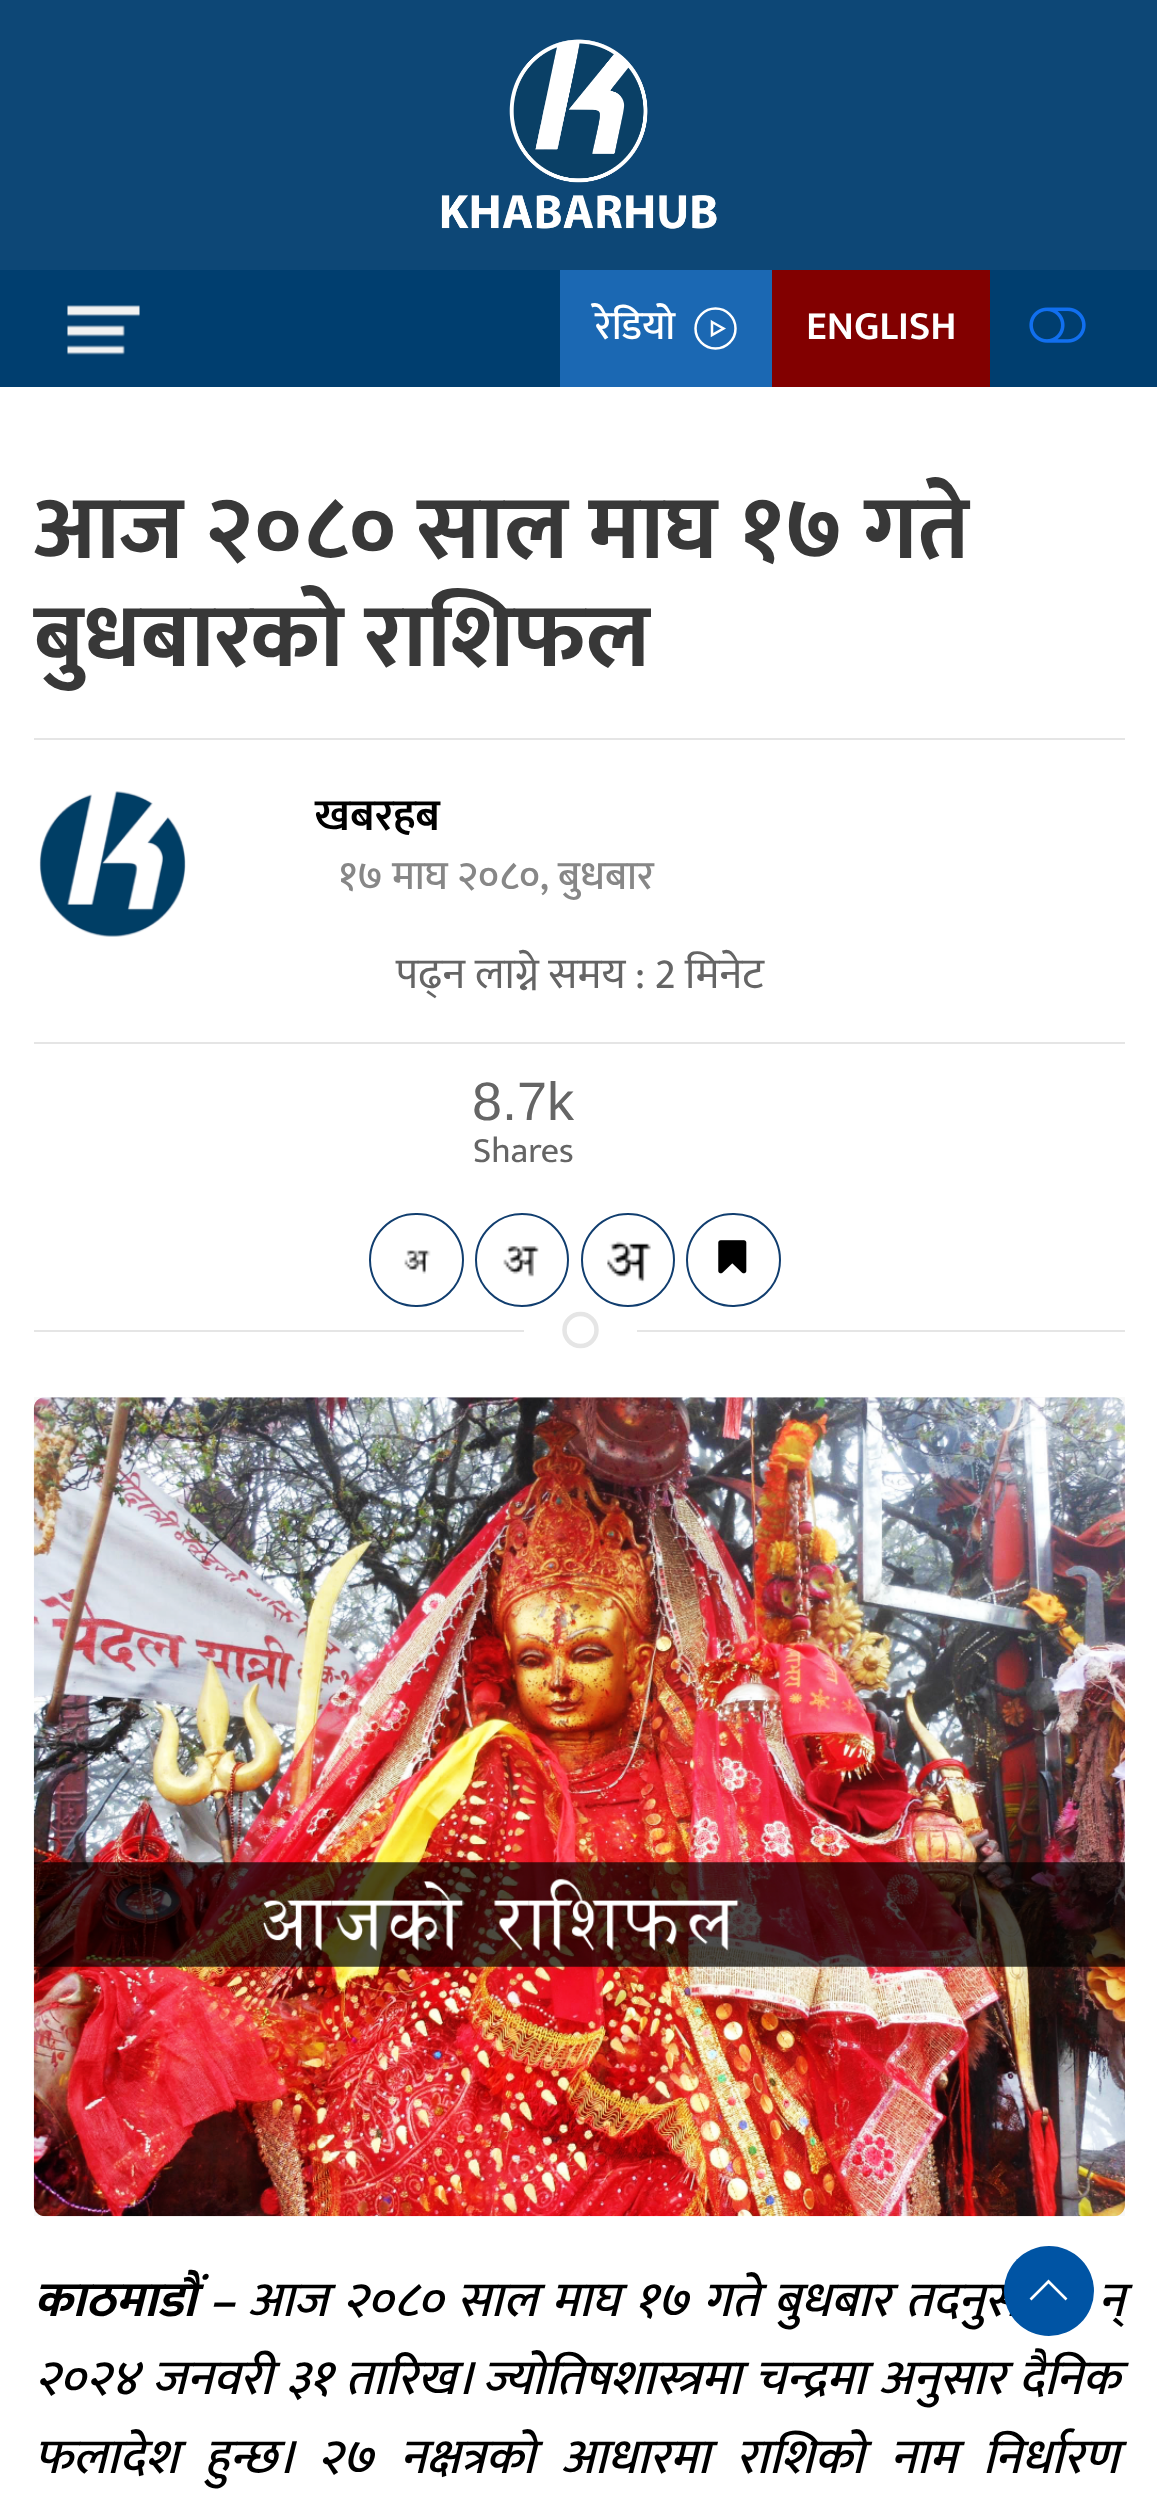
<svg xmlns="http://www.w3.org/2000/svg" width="1157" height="2501">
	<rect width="100%" height="100%" fill="#FFFFFF" />
	<rect x="0" y="0" width="1157" height="270" fill="#0D4776" />
	<image x="441" y="39" width="276" height="190" href="assets/img1.png" />
	<rect x="0" y="270" width="1157" height="117" fill="#003E6F" />
	<image x="67" y="305" width="73" height="50" href="assets/img2.png" />
	<rect x="560" y="270" width="212" height="117" fill="#1B68B3" />
	<text x="595" y="339" font-family="Mukta" font-size="40.5" font-weight="500" fill="#FFFFFF">रेडियो</text>
	<path d="M712 322L723.5 328.5L712 335Z" fill="none" stroke="#FFFFFF" stroke-width="2.5" />
	<circle cx="715.5" cy="328.5" r="20" fill="none" stroke="#FFFFFF" stroke-width="2.5" />
	<rect x="772" y="270" width="218" height="117" fill="#820000" />
	<text x="806" y="339" font-family="Mukta" font-size="40.5" font-weight="600" fill="#FFFFFF">ENGLISH</text>
	<image x="1029" y="307" width="57" height="36" href="assets/img3.png" />
	<g font-family="Mukta" font-size="90" font-weight="700" fill="#383838">
		<text x="34" y="558">आज २०८० साल माघ १७ गते</text>
		<text x="34" y="666">बुधबारको राशिफल</text>
	</g>
	<rect x="34" y="738" width="1091" height="2" fill="#E5E5E5" />
	<image x="39" y="791" width="147" height="146" href="assets/img4.png" />
	<text x="315" y="830" font-family="Mukta" font-size="45" font-weight="600" fill="#000000">खबरहब</text>
	<text x="338" y="889" font-family="Mukta" font-size="40.5" font-weight="500" fill="#878787">१७ माघ २०८०, बुधबार</text>
	<text x="396" y="988" font-family="Mukta" font-size="43.25" fill="#656565">पढ्न लाग्ने समय : 2 मिनेट</text>
	<rect x="34" y="1042" width="1091" height="2" fill="#E5E5E5" />
	<text x="472" y="1120" font-family="Liberation Sans" font-size="54" fill="#656565">8.7k</text>
	<text x="473" y="1162" font-family="Mukta" font-size="36" fill="#656565">Shares</text>
	<rect x="370" y="1214" width="93" height="92" rx="46" fill="none" stroke="#113E6F" stroke-width="2" />
	<image x="404" y="1250" width="27" height="24" href="assets/img5.png" />
	<circle cx="522" cy="1260" r="46" fill="none" stroke="#113E6F" stroke-width="2" />
	<image x="503" y="1246" width="36" height="31" href="assets/img6.png" />
	<circle cx="628" cy="1260" r="46" fill="none" stroke="#113E6F" stroke-width="2" />
	<image x="607" y="1241" width="44" height="42" href="assets/img7.png" />
	<rect x="687" y="1214" width="93" height="92" rx="46" fill="none" stroke="#113E6F" stroke-width="2" />
	<image x="718" y="1240" width="29" height="34" href="assets/img8.png" />
	<circle cx="580.5" cy="1330" r="16" fill="none" stroke="#E5E5E5" stroke-width="4.5" />
	<rect x="34" y="1330" width="490" height="2" fill="#E5E5E5" />
	<rect x="637" y="1330" width="488" height="2" fill="#E5E5E5" />
	<rect x="34" y="1397" width="1091" height="819" fill="#F8F8F8" />
	<image x="33" y="1397" width="1092" height="820" href="assets/img9.png" />
	<text x="34" y="2316" word-spacing="3" font-family="Mukta" font-size="49.5" font-weight="700" font-style="italic" fill="#000000">काठमाडौं –</text>
	<g font-family="Mukta" font-size="49.5" font-weight="500" font-style="italic" fill="#000000">
		<text x="248" y="2316" word-spacing="3">आज २०८० साल माघ १७ गते बुधबार तदनुस</text>
		<text x="1098" y="2316" word-spacing="3">न्</text>
		<text x="34" y="2394" word-spacing="2">२०२४ जनवरी ३१ तारिख। ज्योतिषशास्त्रमा चन्द्रमा अनुसार दैनिक</text>
		<text x="34" y="2473" word-spacing="15">फलादेश हुन्छ। २७ नक्षत्रको आधारमा राशिको नाम निर्धारण</text>
	</g>
	<circle cx="1049" cy="2291" r="45" fill="#0054A4" />
	<path d="M1030.5 2299.5L1048.5 2281.5L1066.5 2299.5" fill="none" stroke="#FFFFFF" stroke-width="2.7" />
</svg>
